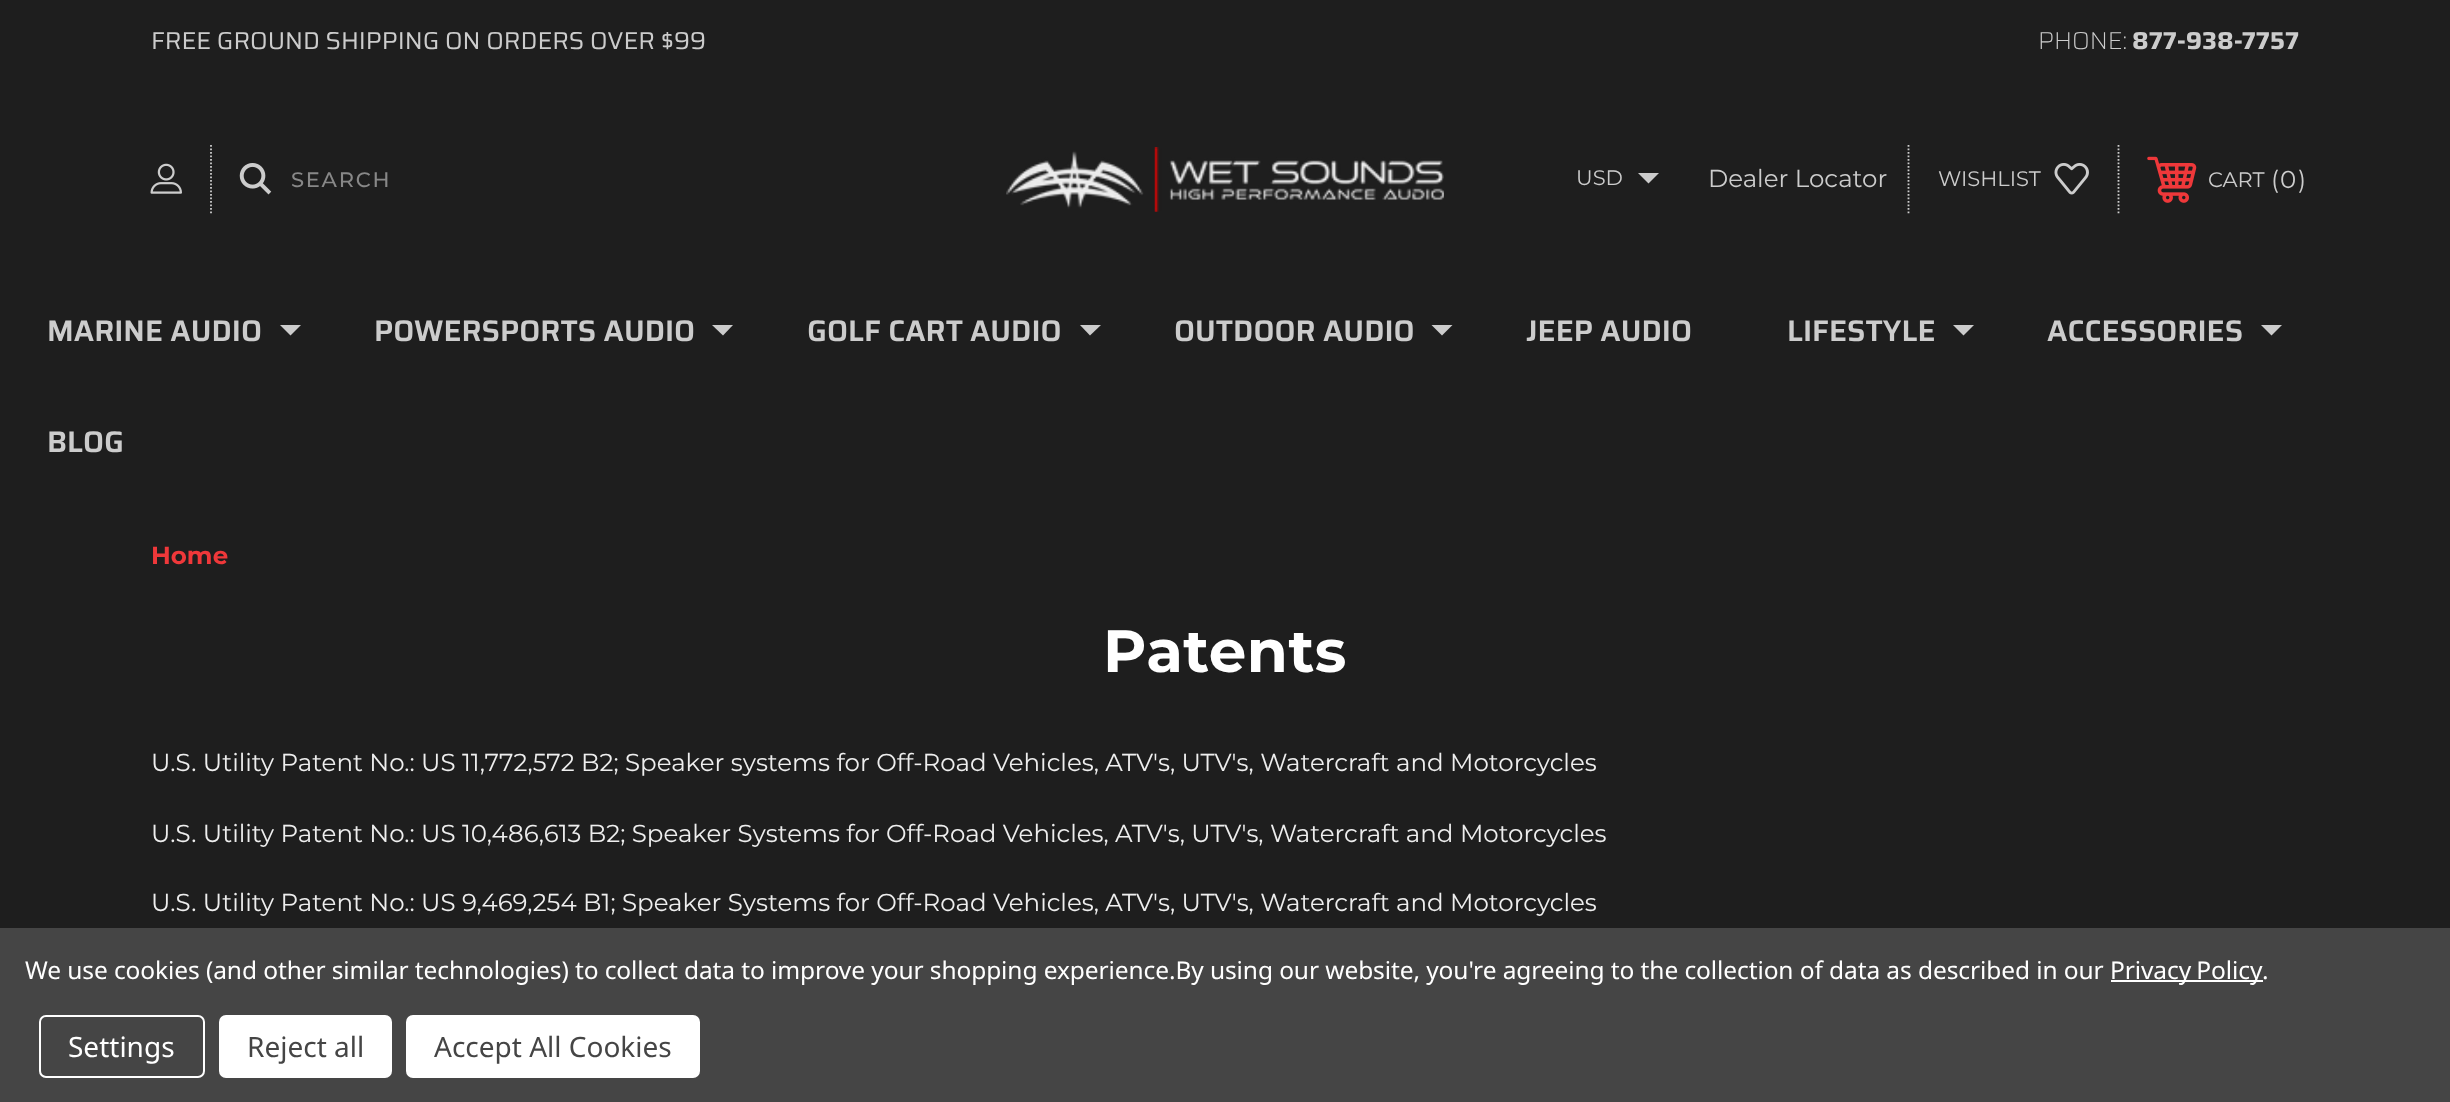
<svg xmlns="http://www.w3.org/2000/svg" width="2450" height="1102">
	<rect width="100%" height="100%" fill="#1E1E1E" />
	<text x="151" y="49" font-family="Saira" font-size="24.5" fill="#CCCCCC">FREE GROUND SHIPPING ON ORDERS OVER $99</text>
	<text x="2038" y="49" font-family="Saira" font-size="24.5" font-weight="200" fill="#CCCCCC">PHONE:</text>
	<text x="2132" y="49" font-family="Saira" font-size="24.5" font-weight="700" fill="#CCCCCC">877-938-7757</text>
	<image x="150" y="163" width="32" height="31" href="assets/img1.png" />
	<path d="M211 145V213.5" fill="none" stroke="#CCCCCC" stroke-width="1.8" stroke-dasharray="1.75 1.75" />
	<image x="239" y="163" width="33" height="32" href="assets/img2.png" />
	<text x="291" y="187" font-family="Montserrat" font-size="21" font-weight="500" letter-spacing="1.75" fill="#888888">SEARCH</text>
	<image x="1006" y="147" width="438" height="65" href="assets/img3.png" />
	<text x="1576" y="185" font-family="Montserrat" font-size="21" fill="#CCCCCC">USD</text>
	<path d="M1638 173L1648.5 183.5L1659 173Z" fill="#CCCCCC" />
	<text x="1708" y="187" font-family="Montserrat" font-size="24.5" fill="#CCCCCC">Dealer Locator</text>
	<path d="M2118.5 145V213.5" fill="none" stroke="#CCCCCC" stroke-width="1.8" stroke-dasharray="1.75 1.75" />
	<path d="M1908.5 145V213.5" fill="none" stroke="#CCCCCC" stroke-width="1.8" stroke-dasharray="1.75 1.75" />
	<text x="1938" y="186" font-family="Montserrat" font-size="21" fill="#CCCCCC">WISHLIST</text>
	<image x="2054" y="163" width="35" height="32" href="assets/img4.png" />
	<image x="2147" y="156" width="50" height="47" href="assets/img5.png" />
	<text x="2208" y="187" font-family="Montserrat" font-size="21" fill="#CCCCCC">CART</text>
	<g font-family="Montserrat" font-size="24.5" fill="#CCCCCC">
		<text x="2271" y="188">(</text>
		<text x="2280" y="188">0</text>
		<text x="2298" y="188">)</text>
	</g>
	<text x="47" y="341" font-family="Saira" font-size="29.75" font-weight="600" fill="#CCCCCC">MARINE AUDIO</text>
	<path d="M280 325L290.5 335.5L301 325Z" fill="#CCCCCC" />
	<text x="374" y="341" font-family="Saira" font-size="29.75" font-weight="600" fill="#CCCCCC">POWERSPORTS AUDIO</text>
	<path d="M712 325L723 335.5L733 325Z" fill="#CCCCCC" />
	<text x="807" y="341" font-family="Saira" font-size="29.75" font-weight="600" fill="#CCCCCC">GOLF CART AUDIO</text>
	<path d="M1080 325L1090 335.5L1101 325Z" fill="#CCCCCC" />
	<text x="1174" y="341" font-family="Saira" font-size="29.75" font-weight="600" fill="#CCCCCC">OUTDOOR AUDIO</text>
	<path d="M1431.5 325L1442 335.5L1452.5 325Z" fill="#CCCCCC" />
	<g font-family="Saira" font-size="29.75" font-weight="600" fill="#CCCCCC">
		<text x="1526" y="341">JEEP AUDIO</text>
		<text x="1787" y="341">LIFESTYLE</text>
	</g>
	<path d="M1953 325L1963.5 335.5L1974 325Z" fill="#CCCCCC" />
	<text x="2047" y="341" font-family="Saira" font-size="29.75" font-weight="600" fill="#CCCCCC">ACCESSORIES</text>
	<path d="M2261 325L2271.5 335.5L2282 325Z" fill="#CCCCCC" />
	<text x="47" y="452" font-family="Saira" font-size="29.75" font-weight="600" fill="#CCCCCC">BLOG</text>
	<text x="151" y="564" font-family="Montserrat" font-size="24.5" font-weight="700" fill="#EF383A">Home</text>
	<text x="1103" y="672" font-family="Montserrat" font-size="59.5" font-weight="700" letter-spacing="0.5" fill="#FFFFFF">Patents</text>
	<g font-family="Montserrat" font-size="24.5" fill="#EEEEEE">
		<text x="151" y="771">U.S. Utility Patent No.: US 11,772,572 B2; Speaker systems for Off-Road Vehicles, ATV's, UTV's, Watercraft and Motorcycles</text>
		<text x="151" y="842">U.S. Utility Patent No.: US 10,486,613 B2; Speaker Systems for Off-Road Vehicles, ATV's, UTV's, Watercraft and Motorcycles</text>
		<text x="151" y="911">U.S. Utility Patent No.: US 9,469,254 B1; Speaker Systems for Off-Road Vehicles, ATV's, UTV's, Watercraft and Motorcycles</text>
	</g>
	<rect x="0" y="928" width="2450" height="174" fill="#454545" />
	<text x="25" y="979" font-family="Noto Sans" font-size="24.5" letter-spacing="-0.09" fill="#FFFFFF">We use cookies (and other similar technologies) to collect data to improve your shopping experience.By using our website, you're agreeing to the collection of data as described in our</text>
	<rect x="2111" y="980" width="152" height="2" fill="#FFFFFF" />
	<g font-family="Noto Sans" font-size="24.5" letter-spacing="-0.09" fill="#FFFFFF">
		<text x="2110" y="979" word-spacing="-1">Privacy Policy</text>
		<text x="2262" y="979">.</text>
	</g>
	<rect x="40" y="1016" width="164" height="61" rx="6" fill="none" stroke="#FFFFFF" stroke-width="2" />
	<text x="68" y="1057" font-family="Noto Sans" font-size="28" fill="#FFFFFF">Settings</text>
	<rect x="219" y="1015" width="173" height="63" rx="7" fill="#FFFFFF" />
	<text x="247" y="1057" font-family="Noto Sans" font-size="28" fill="#454545">Reject all</text>
	<rect x="406" y="1015" width="294" height="63" rx="7" fill="#FFFFFF" />
	<text x="434" y="1057" font-family="Noto Sans" font-size="28" fill="#454545">Accept All Cookies</text>
</svg>
